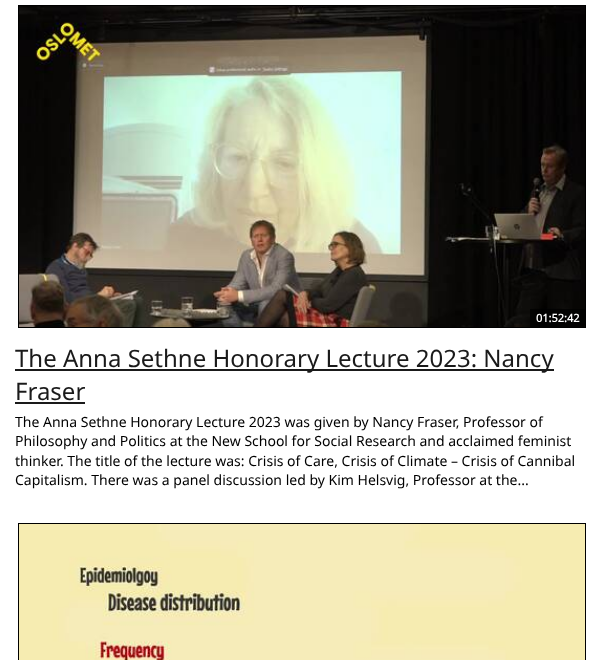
<svg xmlns="http://www.w3.org/2000/svg" width="604" height="660">
	<rect width="100%" height="100%" fill="#FFFFFF" />
	<rect x="18.5" y="5.5" width="567" height="322" fill="none" stroke="#000000" />
	<image x="19" y="6" width="566" height="321" href="assets/img1.png" />
	<rect x="530" y="309" width="55" height="18" fill="#000000" fill-opacity="0.7" />
	<text x="536" y="322" font-family="Noto Sans" font-size="11" font-weight="700" fill="#FFFFFF">01:52:42</text>
	<rect x="15" y="369" width="539" height="2" fill="#1A1A1A" />
	<g font-family="Noto Sans" font-size="24" fill="#1A1A1A">
		<text x="15" y="367">The Anna Sethne Honorary Lecture 2023: Nancy</text>
		<text x="15" y="400">Fraser</text>
	</g>
	<rect x="15" y="402" width="70" height="2" fill="#1A1A1A" />
	<g font-family="Noto Sans" font-size="14" fill="#000000">
		<text x="15" y="427">The Anna Sethne Honorary Lecture 2023 was given by Nancy Fraser, Professor of</text>
		<text x="15" y="446">Philosophy and Politics at the New School for Social Research and acclaimed feminist</text>
		<text x="15" y="466">thinker. The title of the lecture was: Crisis of Care, Crisis of Climate – Crisis of Cannibal</text>
		<text x="15" y="485">Capitalism. There was a panel discussion led by Kim Helsvig, Professor at the...</text>
	</g>
	<rect x="18.5" y="523.5" width="567" height="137" fill="none" stroke="#000000" />
	<image x="19" y="524" width="566" height="136" href="assets/img2.png" />
</svg>
